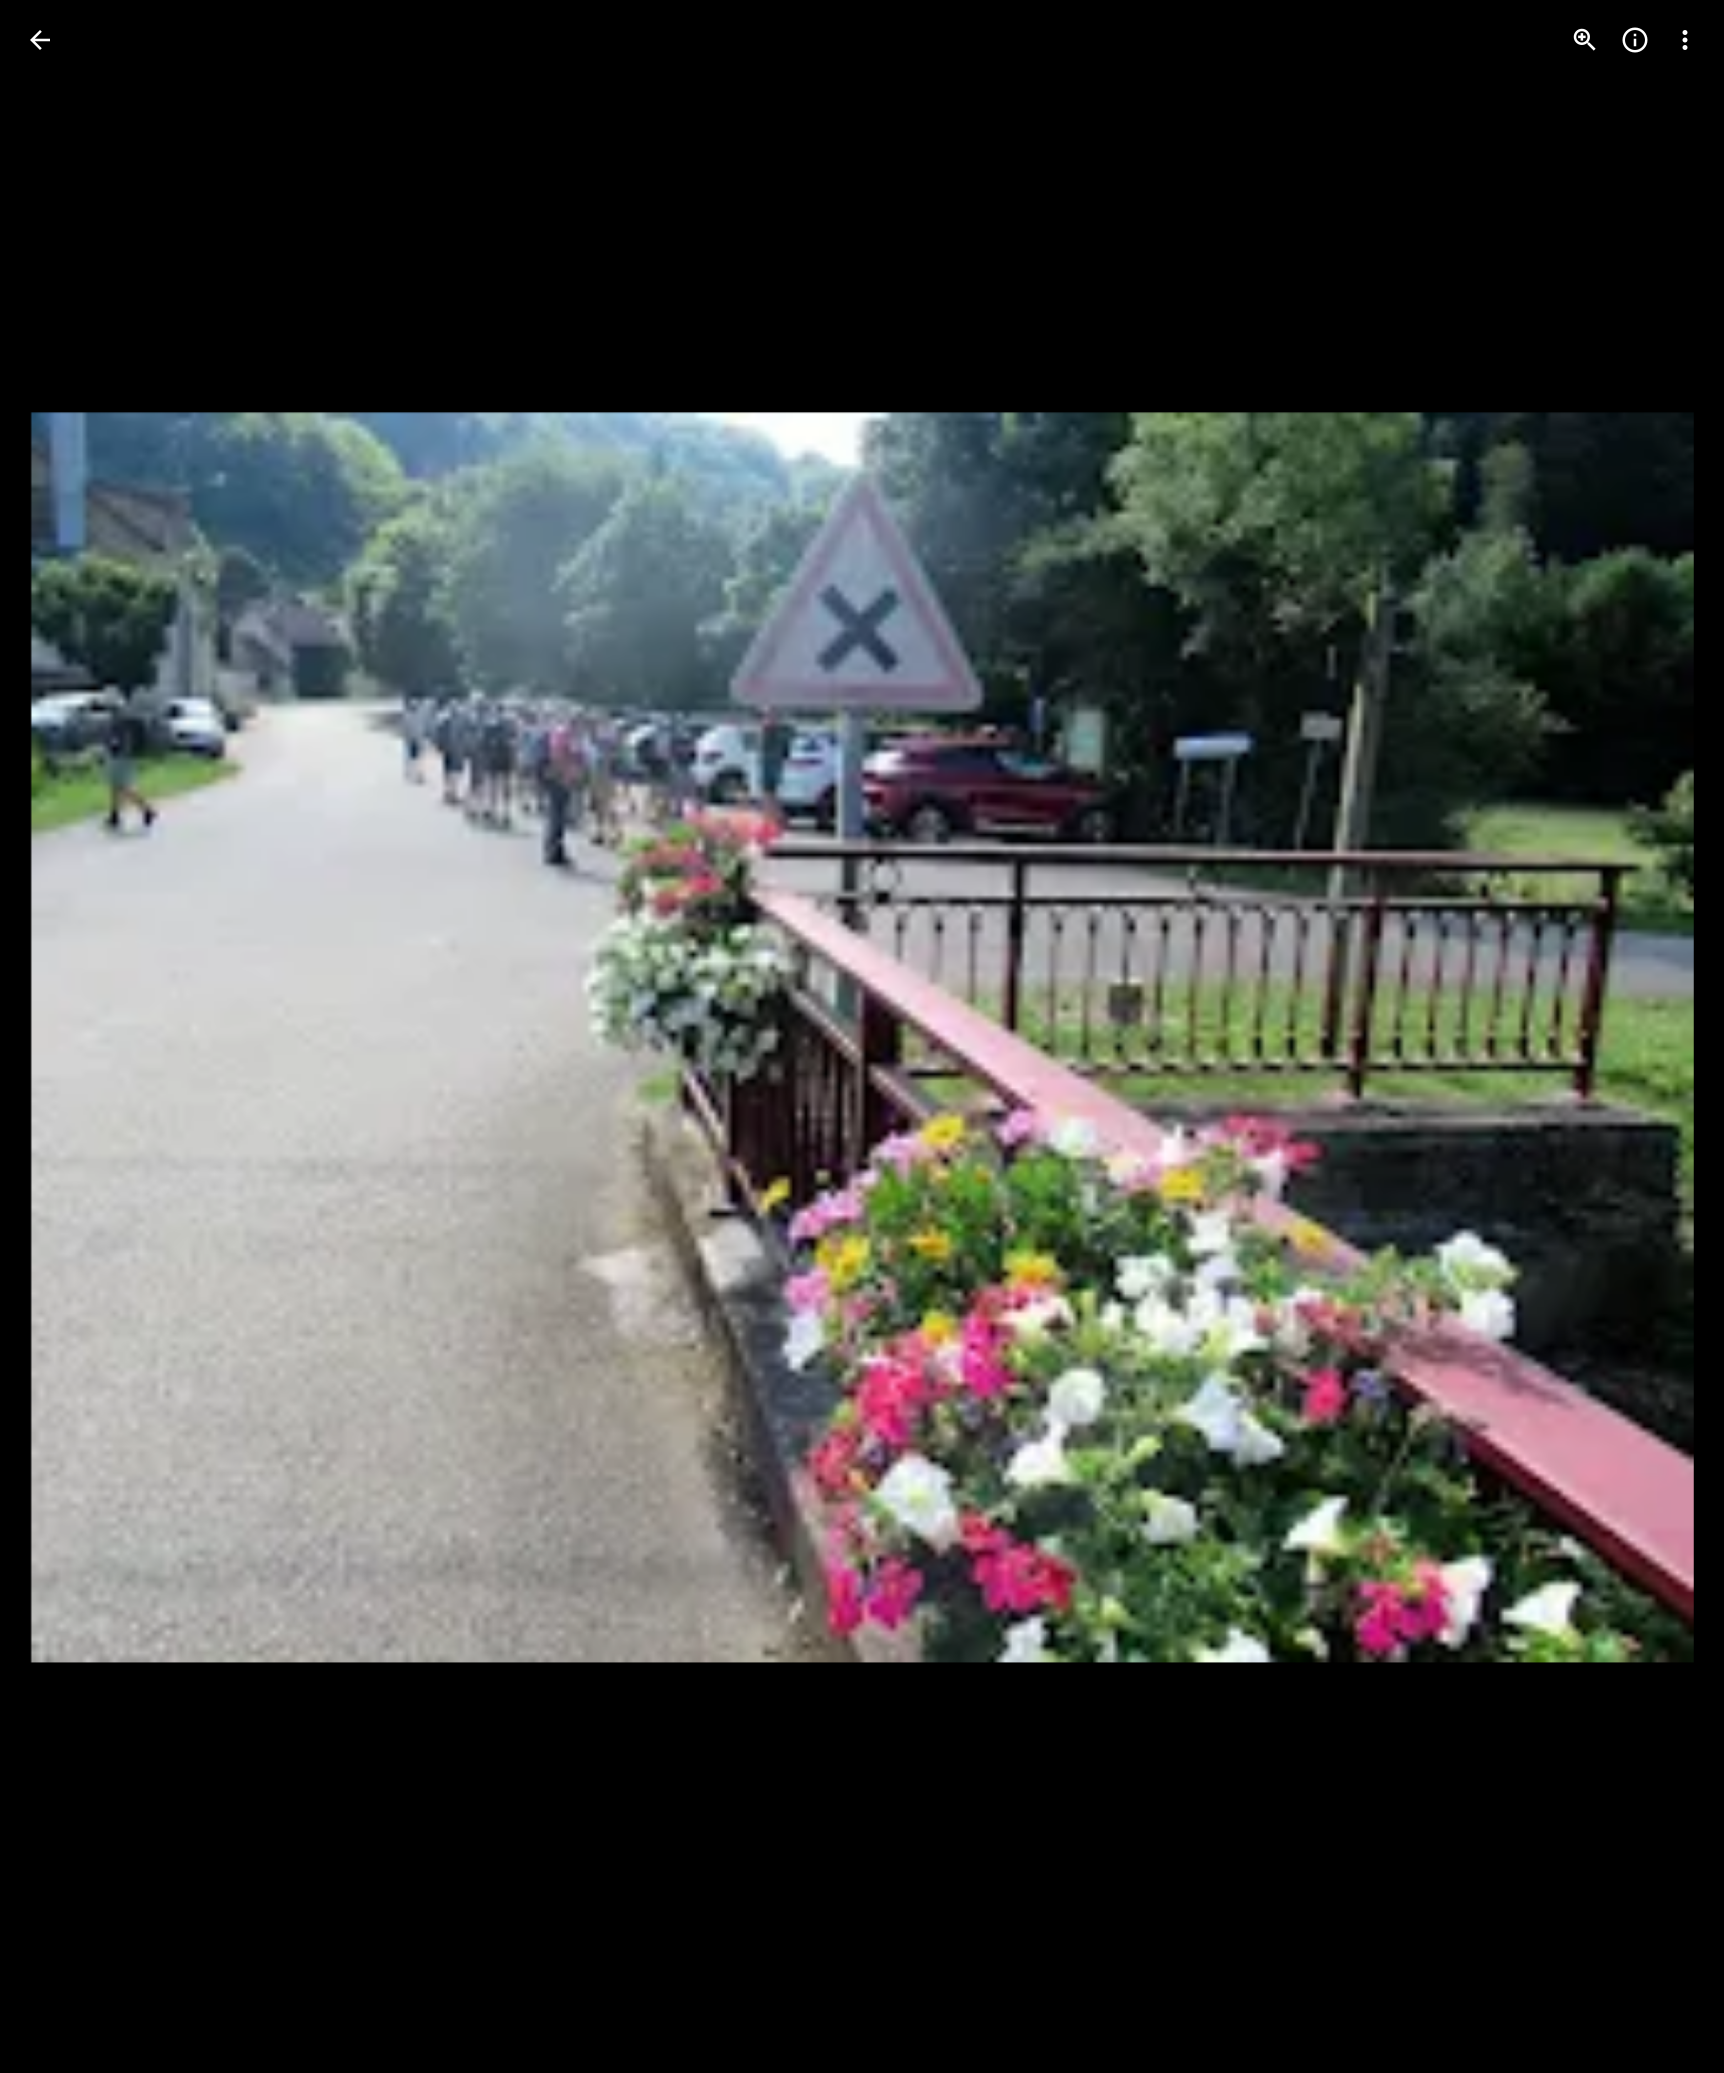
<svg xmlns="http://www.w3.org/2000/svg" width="1724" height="2073">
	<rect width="100%" height="100%" fill="#000000" />
	<image x="30" y="30" width="20" height="20" href="assets/img1.png" />
	<image x="1573" y="28" width="23" height="23" href="assets/img2.png" />
	<image x="1622" y="27" width="26" height="26" href="assets/img3.png" />
	<image x="1682" y="30" width="6" height="20" href="assets/img4.png" />
	<image x="30" y="412" width="1664" height="1251" href="assets/img5.png" />
</svg>
